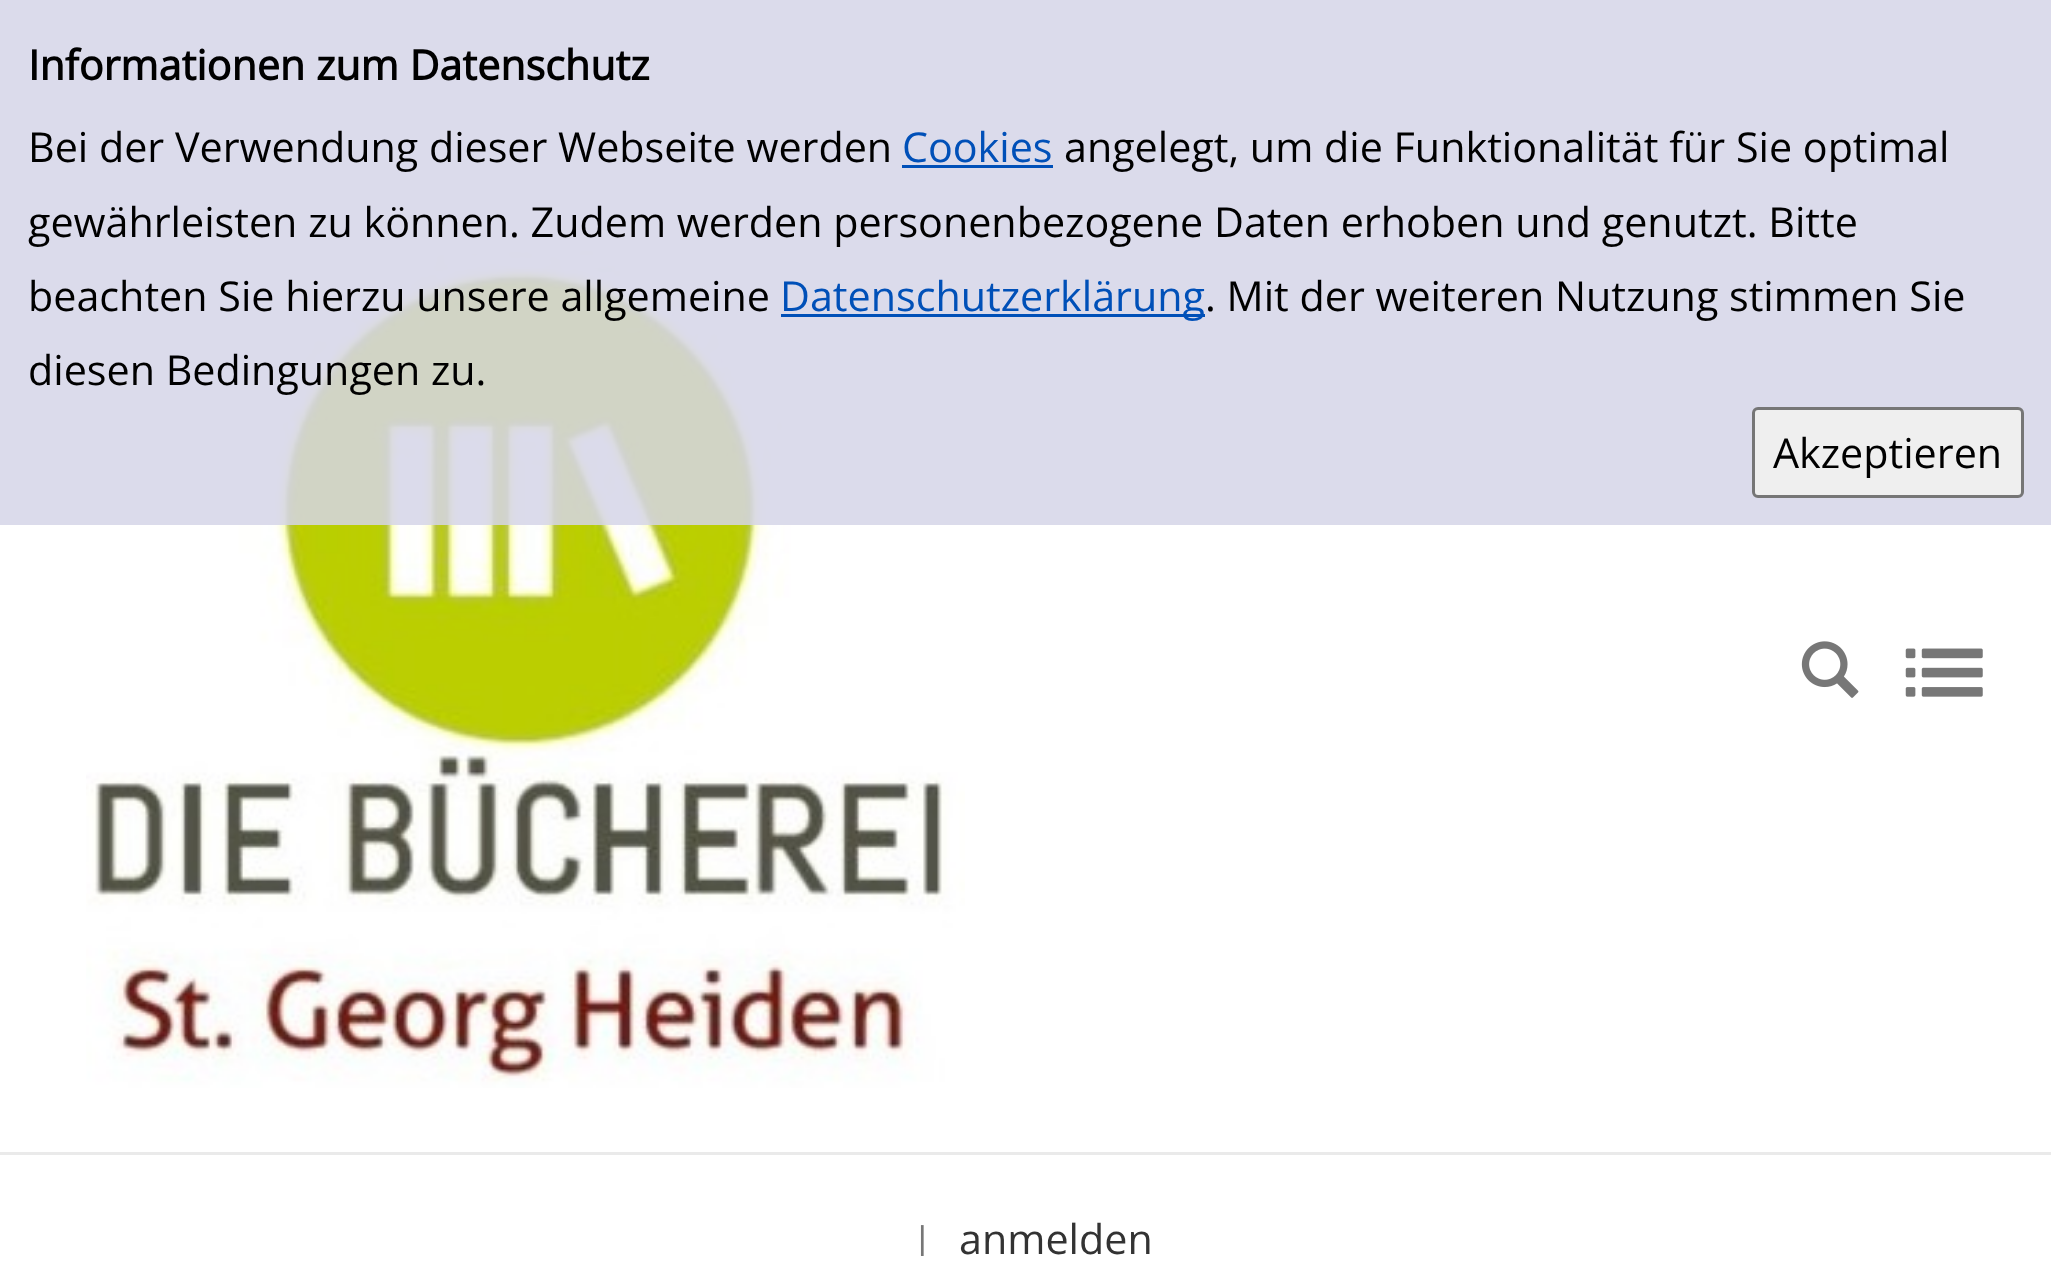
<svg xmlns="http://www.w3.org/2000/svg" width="2051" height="1288">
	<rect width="100%" height="100%" fill="#FFFFFF" />
	<image x="86" y="250" width="879" height="838" href="assets/img1.png" />
	<rect x="0" y="0" width="2051" height="525" fill="#D5D5E7" fill-opacity="0.85" />
	<text x="28" y="80" font-family="Open Sans" font-size="41.25" font-weight="700" fill="#000000">Informationen zum Datenschutz</text>
	<text x="28" y="162" font-family="Open Sans" font-size="41.25" fill="#000000">Bei der Verwendung dieser Webseite werden</text>
	<text x="902" y="162" font-family="Open Sans" font-size="41.25" fill="#0050B8">Cookies</text>
	<rect x="902" y="165" width="151" height="3" fill="#0050B8" />
	<g font-family="Open Sans" font-size="41.25" fill="#000000">
		<text x="1064" y="162">angelegt, um die Funktionalität für Sie optimal</text>
		<text x="28" y="237">gewährleisten zu können. Zudem werden personenbezogene Daten erhoben und genutzt. Bitte</text>
		<text x="28" y="311">beachten Sie hierzu unsere allgemeine</text>
	</g>
	<rect x="781" y="314" width="424" height="3" fill="#0050B8" />
	<text x="780" y="311" font-family="Open Sans" font-size="41.25" fill="#0050B8">Datenschutzerklärung</text>
	<g font-family="Open Sans" font-size="41.25" fill="#000000">
		<text x="1205" y="311">. Mit der weiteren Nutzung stimmen Sie</text>
		<text x="28" y="385">diesen Bedingungen zu.</text>
	</g>
	<rect x="1753.5" y="408.5" width="269" height="88" rx="4.5" fill="#EFEFEF" stroke="#767676" stroke-width="3" />
	<text x="1773" y="468" font-family="Open Sans" font-size="41.25" fill="#000000">Akzeptieren</text>
	<rect x="0" y="1152" width="2051" height="3" fill="#EAEAEA" />
	<image x="1801" y="641" width="58" height="57" href="assets/img2.png" />
	<image x="1905" y="648" width="78" height="49" href="assets/img3.png" />
	<text x="918" y="1249" font-family="Liberation Sans" font-size="33" fill="#777777">|</text>
	<text x="959" y="1254" font-family="Open Sans" font-size="41.25" fill="#333333">anmelden</text>
</svg>
